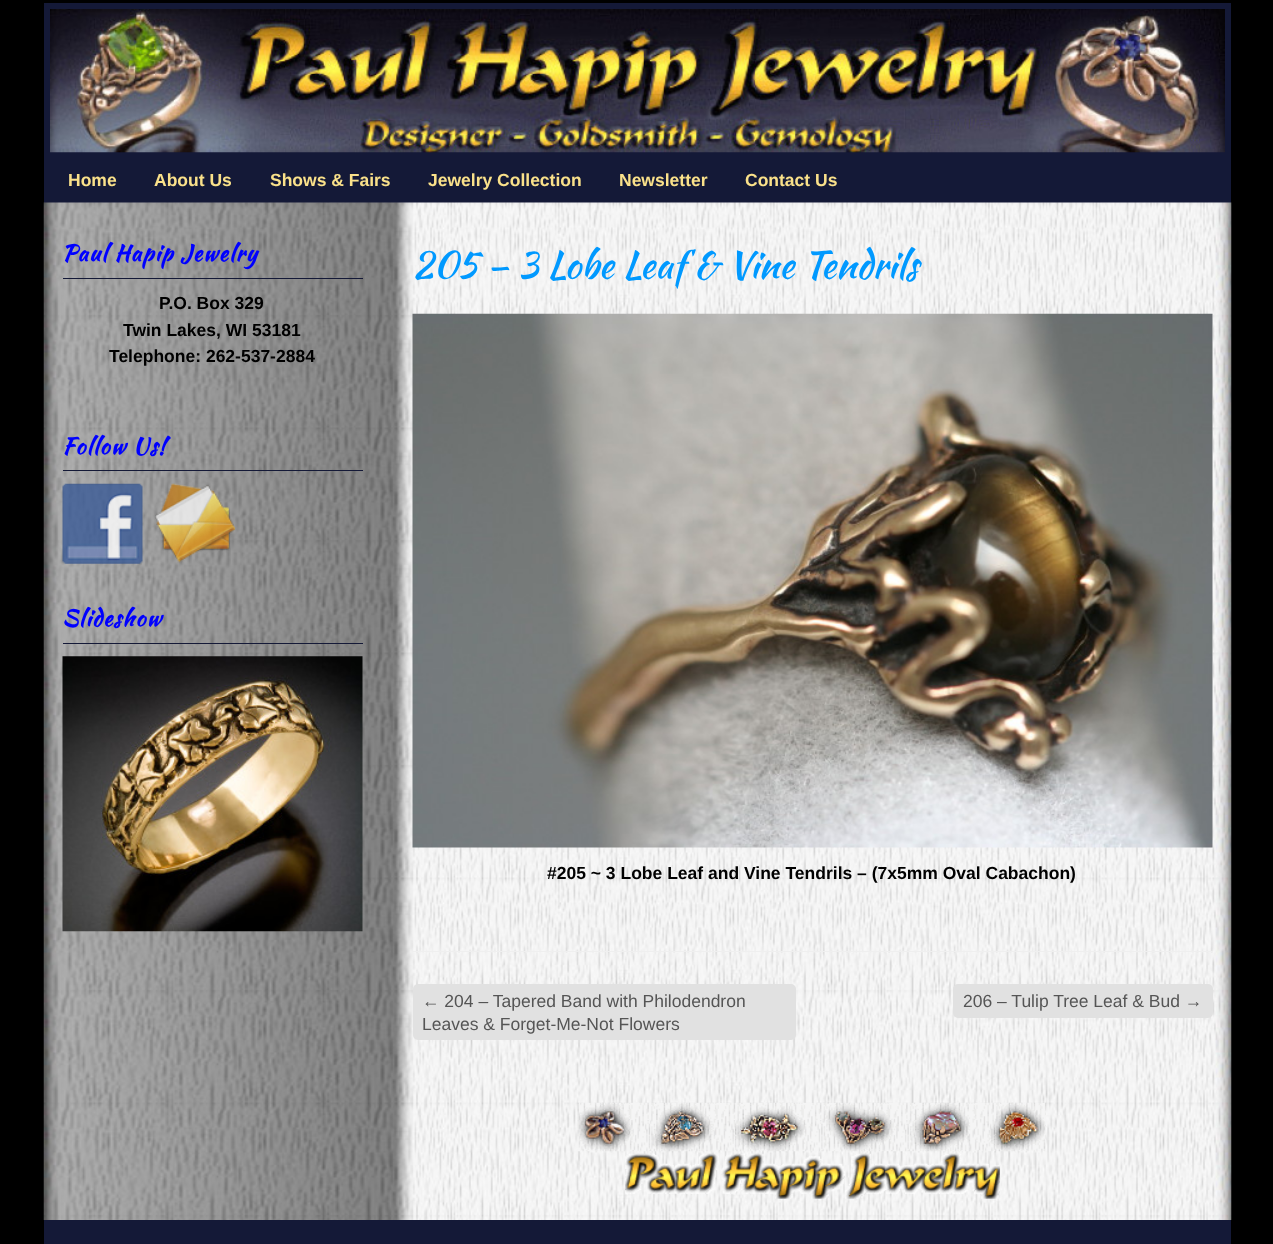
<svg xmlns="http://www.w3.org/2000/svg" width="1273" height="1244">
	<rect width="100%" height="100%" fill="#000000" />
	<rect x="44" y="3" width="1187" height="200" fill="#141937" />
	<image x="50" y="9" width="1175" height="144" href="assets/img1.png" />
	<g font-family="Liberation Sans" font-size="17.5" font-weight="700" fill="#FAE18A">
		<text x="68" y="186">Home</text>
		<text x="154" y="186">About Us</text>
		<text x="270" y="186">Shows &amp; Fairs</text>
		<text x="428" y="186">Jewelry Collection</text>
		<text x="619" y="186">Newsletter</text>
		<text x="745" y="186">Contact Us</text>
	</g>
	<image x="43" y="202" width="1189" height="1018" href="assets/img2.png" />
	<rect x="63" y="278" width="300" height="1" fill="#141937" />
	<text x="62" y="261" font-family="Kaushan Script" font-size="22.5" font-weight="700" letter-spacing="1.25" fill="#0000FF">Paul Hapip Jewelry</text>
	<g font-family="Liberation Sans" font-size="17.5" font-weight="700" fill="#000000">
		<text x="159" y="309">P.O. Box 329</text>
		<text x="123" y="336">Twin Lakes, WI 53181</text>
		<text x="109" y="362">Telephone: 262-537-2884</text>
	</g>
	<rect x="63" y="470" width="300" height="1" fill="#141937" />
	<text x="62" y="454" font-family="Kaushan Script" font-size="22.5" font-weight="700" letter-spacing="1.25" fill="#0000FF">Follow Us!</text>
	<image x="62" y="483" width="81" height="81" href="assets/img3.png" />
	<image x="155" y="483" width="80" height="80" href="assets/img4.png" />
	<rect x="63" y="643" width="300" height="1" fill="#141937" />
	<text x="62" y="626" font-family="Kaushan Script" font-size="22.5" font-weight="700" letter-spacing="1.25" fill="#0000FF">Slideshow</text>
	<image x="62" y="656" width="301" height="276" href="assets/img5.png" />
	<rect x="413" y="951" width="800" height="1" fill="#EFEFEF" />
	<text x="412" y="278" font-family="Kaushan Script" font-size="37.5" fill="#0099FF">205 – 3 Lobe Leaf &amp; Vine Tendrils</text>
	<image x="412" y="313" width="801" height="535" href="assets/img6.png" />
	<text x="547" y="879" font-family="Liberation Sans" font-size="17.5" font-weight="700" fill="#000000">#205 ~ 3 Lobe Leaf and Vine Tendrils – (7x5mm Oval Cabachon)</text>
	<rect x="413" y="984" width="383" height="56" rx="5" fill="#E1E1E1" />
	<g font-family="Liberation Sans" font-size="17.5" fill="#555555">
		<text x="422" y="1007">← 204 – Tapered Band with Philodendron</text>
		<text x="422" y="1030">Leaves &amp; Forget-Me-Not Flowers</text>
	</g>
	<rect x="953" y="984" width="260" height="34" rx="5" fill="#E1E1E1" />
	<text x="963" y="1007" font-family="Liberation Sans" font-size="17.5" fill="#555555">206 – Tulip Tree Leaf &amp; Bud →</text>
	<image x="577" y="1102" width="469" height="50" href="assets/img7.png" />
	<image x="625" y="1153" width="375" height="46" href="assets/img8.png" />
	<rect x="44" y="1220" width="1187" height="24" fill="#141937" />
</svg>
